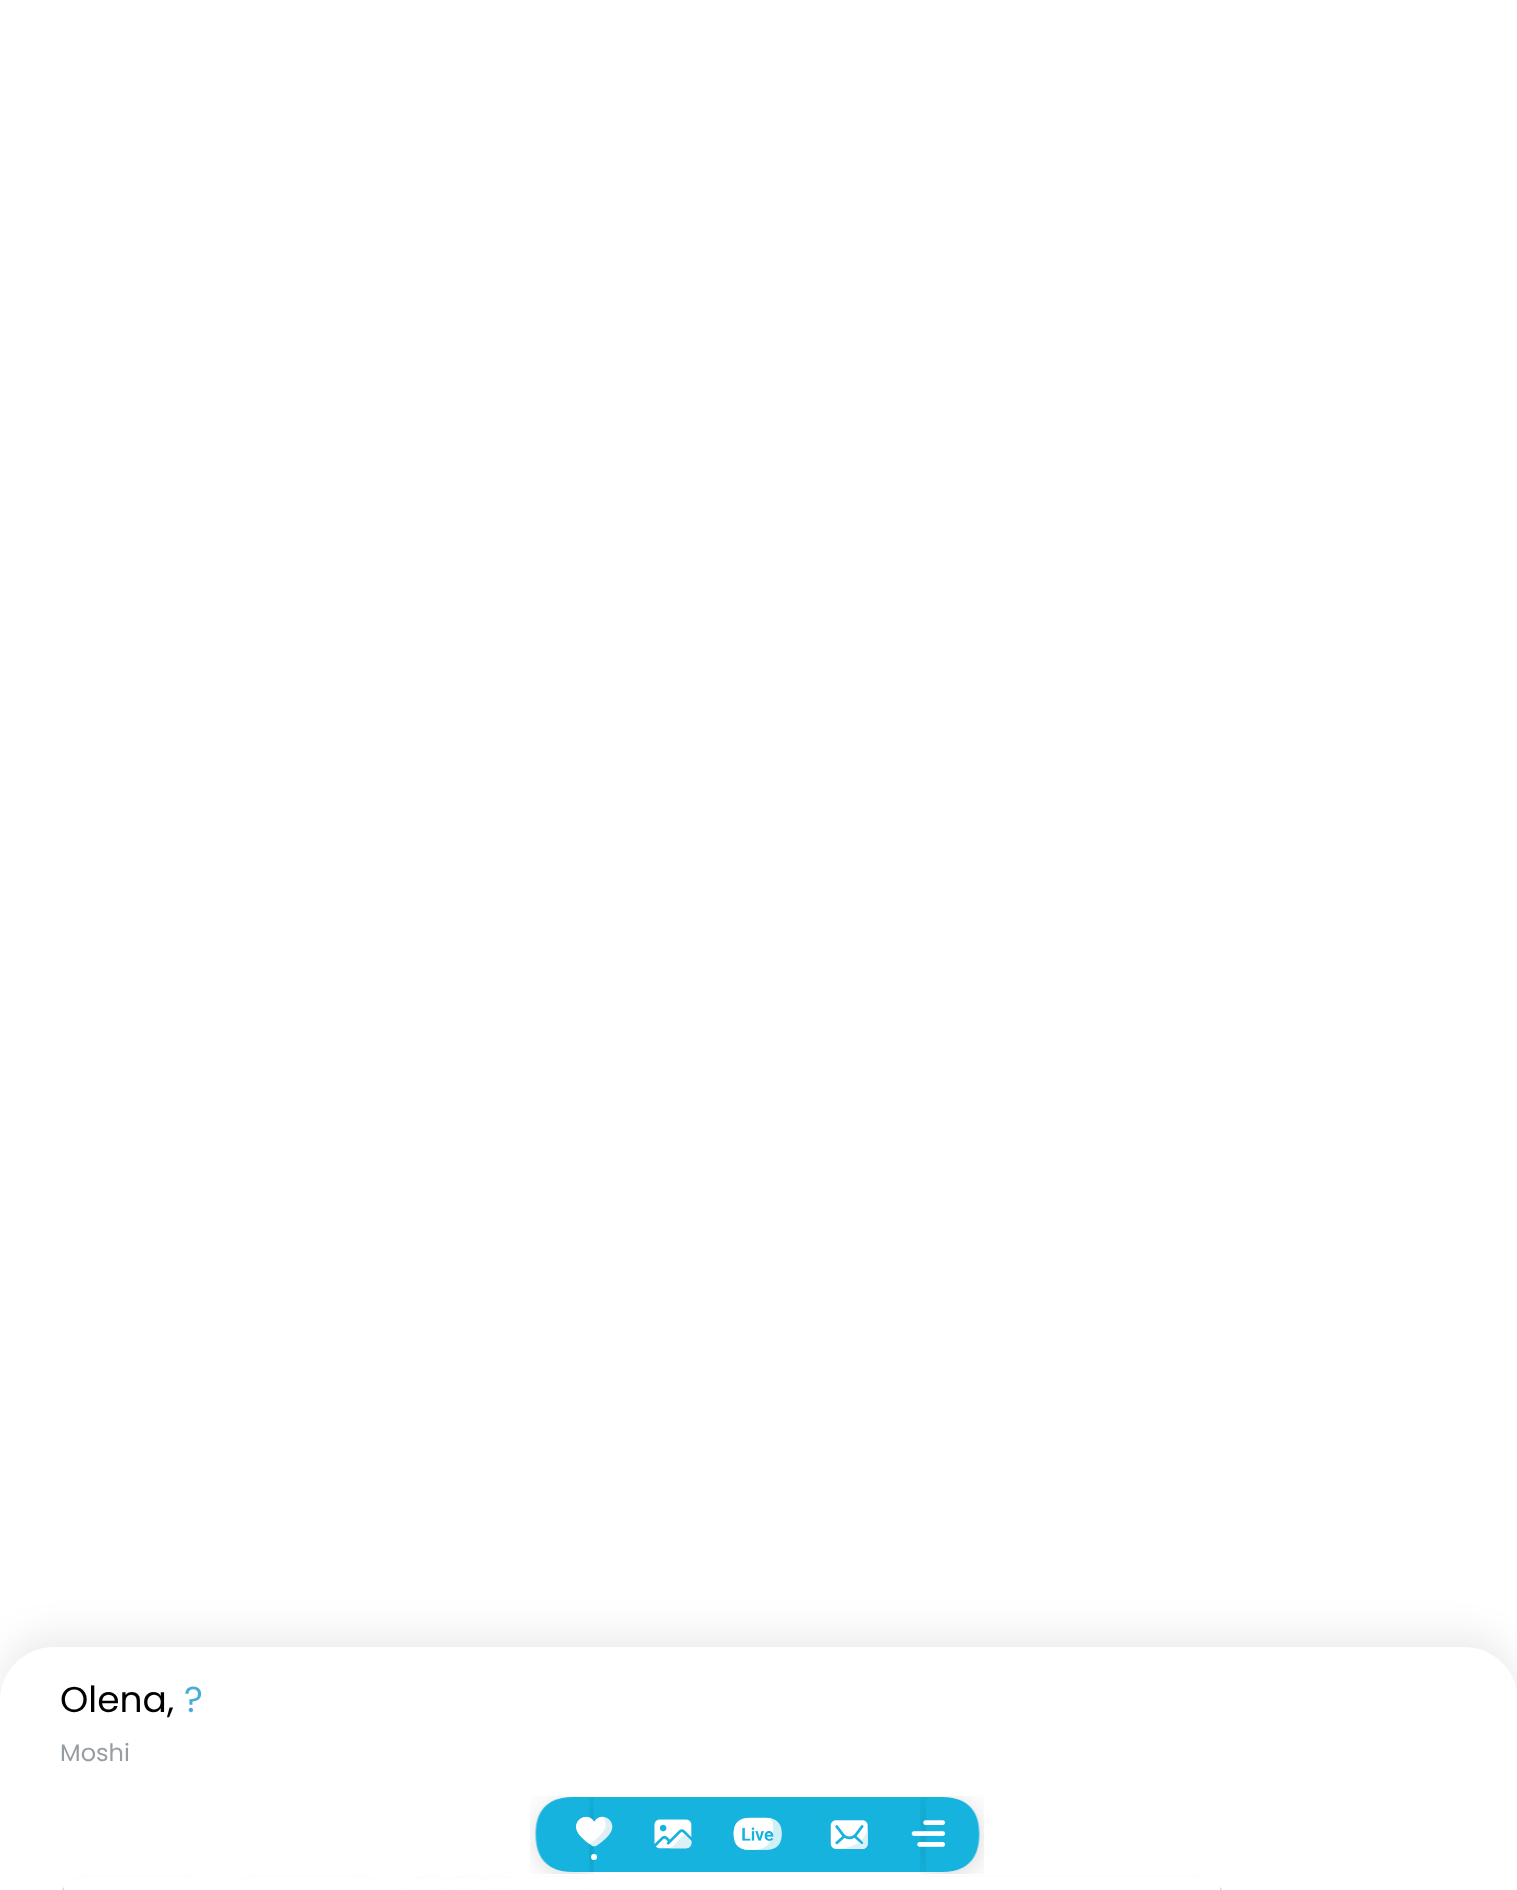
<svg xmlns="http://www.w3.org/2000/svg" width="1517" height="1890">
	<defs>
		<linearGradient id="g1" gradientUnits="userSpaceOnUse" x1="759" y1="1770" x2="759" y2="1890"><stop offset="0" stop-color="#FFFFFF" stop-opacity="0.5" /><stop offset="1" stop-color="#FFFFFF" /></linearGradient>
	</defs>
	<rect width="100%" height="100%" fill="#FFFFFF" />
	<rect x="0" y="1635" width="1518" height="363" rx="54" fill="#000000" fill-opacity="0.08" filter="blur(18px)" />
	<path d="M54 1647H1464C1494 1647 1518 1671 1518 1701V1890H0V1701C0 1671 24 1647 54 1647Z" fill="#FFFFFF" />
	<g font-family="Poppins" font-size="36" fill="#000000">
		<text x="60" y="1712">Olena</text>
		<text x="167" y="1712">,</text>
	</g>
	<text x="184" y="1712" font-family="Poppins" font-size="36" fill="#48ABD8">?</text>
	<text x="60" y="1761" font-family="Poppins" font-size="24" fill="#969DA3">Moshi</text>
	<rect x="61" y="1876" width="154" height="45" rx="29" fill="none" stroke="#D7DBDE" stroke-width="2" />
	<rect x="229" y="1876" width="157" height="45" rx="29" fill="none" stroke="#D7DBDE" stroke-width="2" />
	<rect x="400" y="1876" width="61" height="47" rx="30.5" fill="none" stroke="#D7DBDE" stroke-width="2" />
	<path d="M468.5 1875C486 1875 500 1889 500 1906.5V1890H437V1906.5C437 1889 451 1875 468.5 1875Z" fill="#FFFFFF" />
	<rect x="438" y="1876" width="61" height="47" rx="30.5" fill="none" stroke="#D7DBDE" stroke-width="2" />
	<image x="455" y="1886" width="20" height="3" href="assets/img1.png" />
	<path d="M498.5 1875C516 1875 530 1889 530 1906.5V1890H467V1906.5C467 1889 481 1875 498.5 1875Z" fill="#FFFFFF" />
	<rect x="468" y="1876" width="61" height="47" rx="30.5" fill="none" stroke="#D7DBDE" stroke-width="2" />
	<image x="489" y="1886" width="19" height="3" href="assets/img2.png" />
	<path d="M543.5 1875H562.5C580 1875 594 1889 594 1906.5V1890H512V1906.5C512 1889 526 1875 543.5 1875Z" fill="#FFFFFF" />
	<rect x="513" y="1876" width="80" height="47" rx="30.5" fill="none" stroke="#D7DBDE" stroke-width="2" />
	<rect x="598" y="1876" width="625" height="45" rx="29" fill="none" stroke="#D7DBDE" stroke-width="2" />
	<rect x="64" y="1875" width="1156" height="15" fill="url(#g1)" />
	<rect x="575" y="1797" width="370" height="75" rx="6" fill="#16B3DE" />
	<image x="530" y="1796" width="64" height="78" href="assets/img3.png" />
	<image x="576" y="1816" width="37" height="31" href="assets/img4.png" />
	<circle cx="594" cy="1857" r="3" fill="#FFFFFF" />
	<image x="654" y="1819" width="38" height="30" href="assets/img5.png" />
	<image x="733" y="1817" width="49" height="33" href="assets/img6.png" />
	<image x="830" y="1820" width="38" height="29" href="assets/img7.png" />
	<image x="920" y="1796" width="64" height="78" href="assets/img9.png" />
	<image x="911" y="1820" width="35" height="27" href="assets/img8.png" />
</svg>
